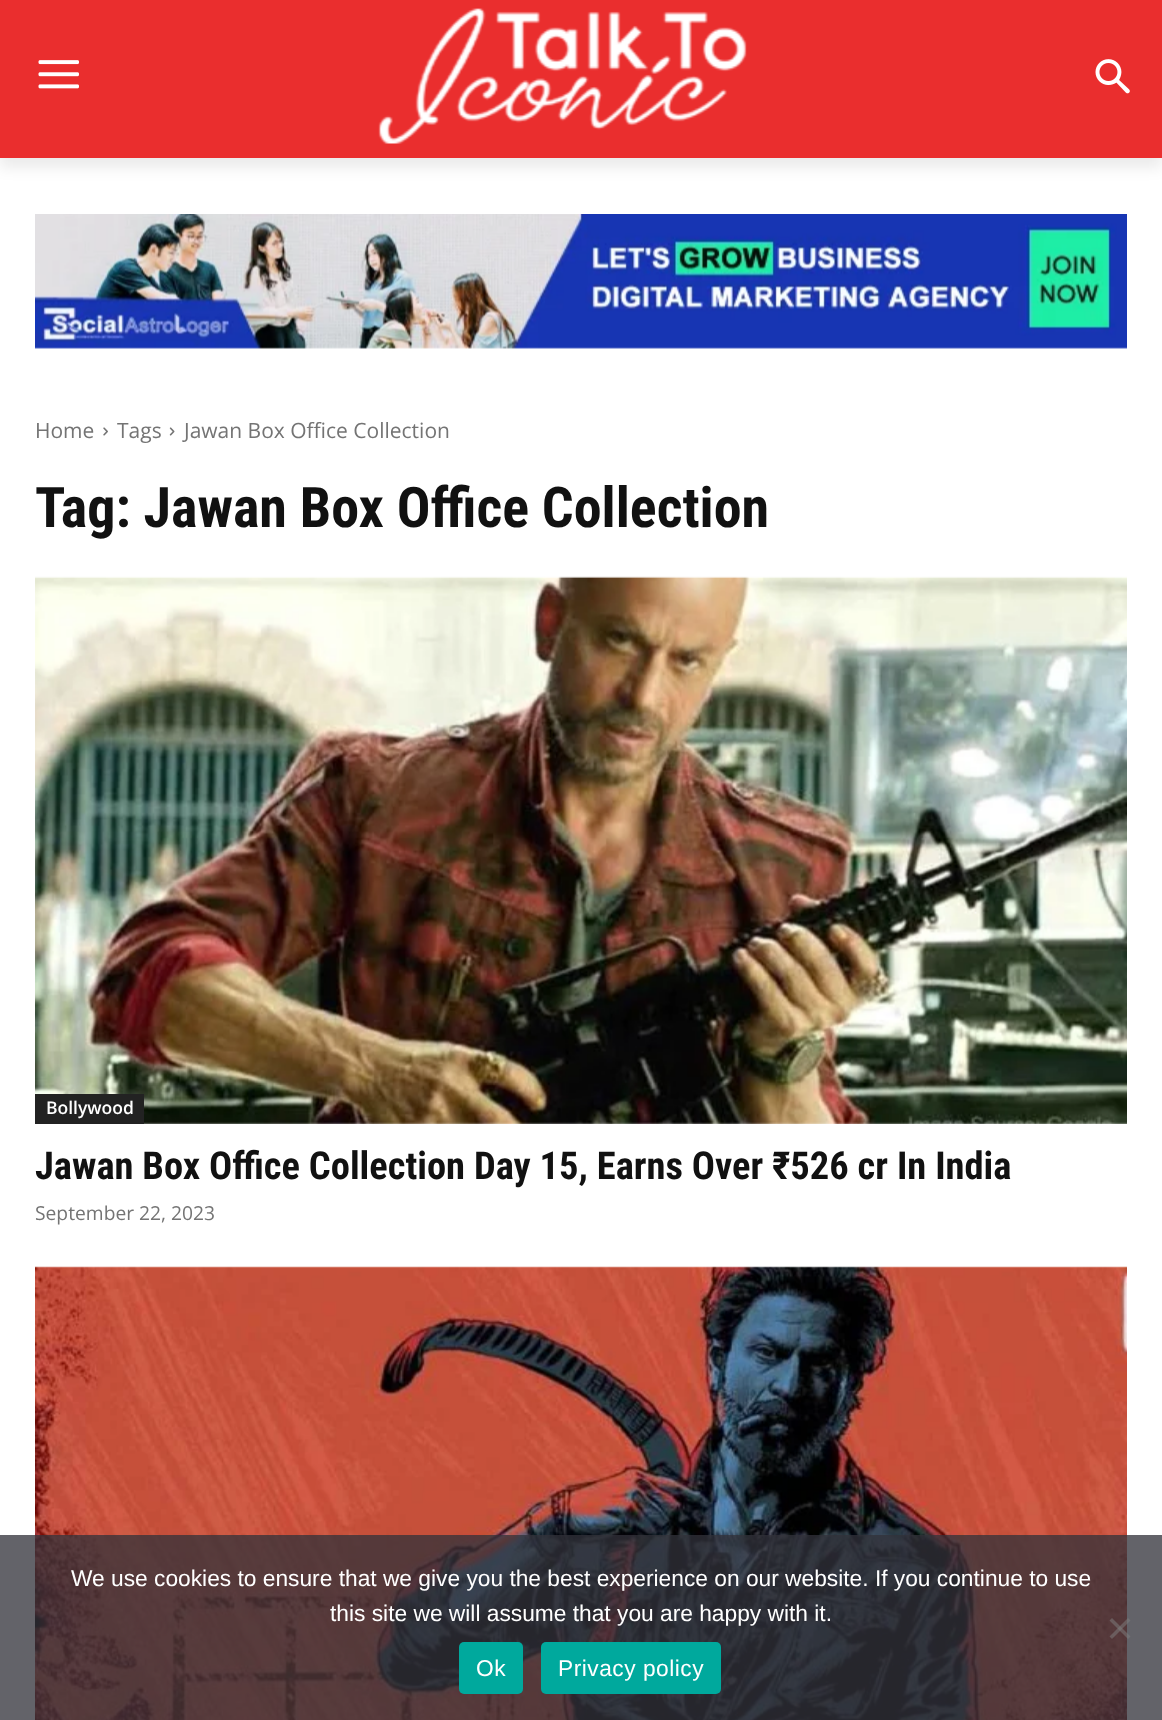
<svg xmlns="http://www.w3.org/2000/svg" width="1162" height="1720">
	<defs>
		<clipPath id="clip1"><path d="M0 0H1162V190H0ZM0 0H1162V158H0Z" clip-rule="evenodd" /></clipPath>
	</defs>
	<rect width="100%" height="100%" fill="#FFFFFF" />
	<rect x="0" y="0" width="1162" height="158" fill="#EA2E2E" />
	<image x="38" y="60" width="41" height="29" href="assets/img1.png" />
	<image x="378" y="8" width="369" height="136" href="assets/img2.png" />
	<image x="1095" y="59" width="35" height="35" href="assets/img3.png" />
	<g clip-path="url(#clip1)">
		<rect x="0" y="11" width="1162" height="157" fill="#000000" fill-opacity="0.08" filter="blur(7px)" />
	</g>
	<image x="35" y="214" width="1092" height="135" href="assets/img4.png" />
	<text x="35" y="438" font-family="Open Sans" font-size="21" fill="#747474">Home</text>
	<image x="103" y="427" width="5" height="9" href="assets/img5.png" />
	<text x="117" y="438" font-family="Open Sans" font-size="21" fill="#747474">Tags</text>
	<image x="169" y="427" width="6" height="9" href="assets/img6.png" />
	<text x="184" y="438" font-family="Open Sans" font-size="21" fill="#747474">Jawan Box Office Collection</text>
	<text x="35" y="527" font-family="Roboto Condensed" font-size="56" font-weight="700" fill="#111111">Tag: Jawan Box Office Collection</text>
	<image x="35" y="576" width="1092" height="548" href="assets/img7.png" />
	<rect x="35" y="1094" width="109" height="30" fill="#222222" />
	<text x="46" y="1114" font-family="Open Sans" font-size="17.5" font-weight="600" fill="#FFFFFF">Bollywood</text>
	<text x="35" y="1179" font-family="Roboto Condensed" font-size="38.5" font-weight="700" fill="#111111">Jawan Box Office Collection Day 15, Earns Over ₹526 cr In India</text>
	<text x="35" y="1220" font-family="Open Sans" font-size="19.25" fill="#747474">September 22, 2023</text>
	<image x="35" y="1266" width="1092" height="454" href="assets/img8.png" />
	<rect x="0" y="1535" width="1162" height="185" fill="#32323A" fill-opacity="0.76" />
	<g font-family="Liberation Sans" font-size="22.75" fill="#FFFFFF">
		<text x="71" y="1586">We use cookies to ensure that we give you the best experience on our website. If you continue to use</text>
		<text x="330" y="1621">this site we will assume that you are happy with it.</text>
	</g>
	<path d="M1128 1618L1130.5 1620.5L1112 1639L1109.5 1636.5Z" fill="#808080" fill-opacity="0.5" />
	<path d="M1109.5 1620.5L1112 1618L1130.5 1636.5L1128 1639Z" fill="#808080" fill-opacity="0.5" />
	<rect x="459" y="1642" width="64" height="52" rx="5" fill="#00A99D" />
	<text x="476" y="1676" font-family="Liberation Sans" font-size="22.75" letter-spacing="0.5" fill="#FFFFFF">Ok</text>
	<rect x="541" y="1642" width="180" height="52" rx="5" fill="#00A99D" />
	<text x="558" y="1676" font-family="Liberation Sans" font-size="22.75" letter-spacing="0.5" fill="#FFFFFF">Privacy policy</text>
</svg>
